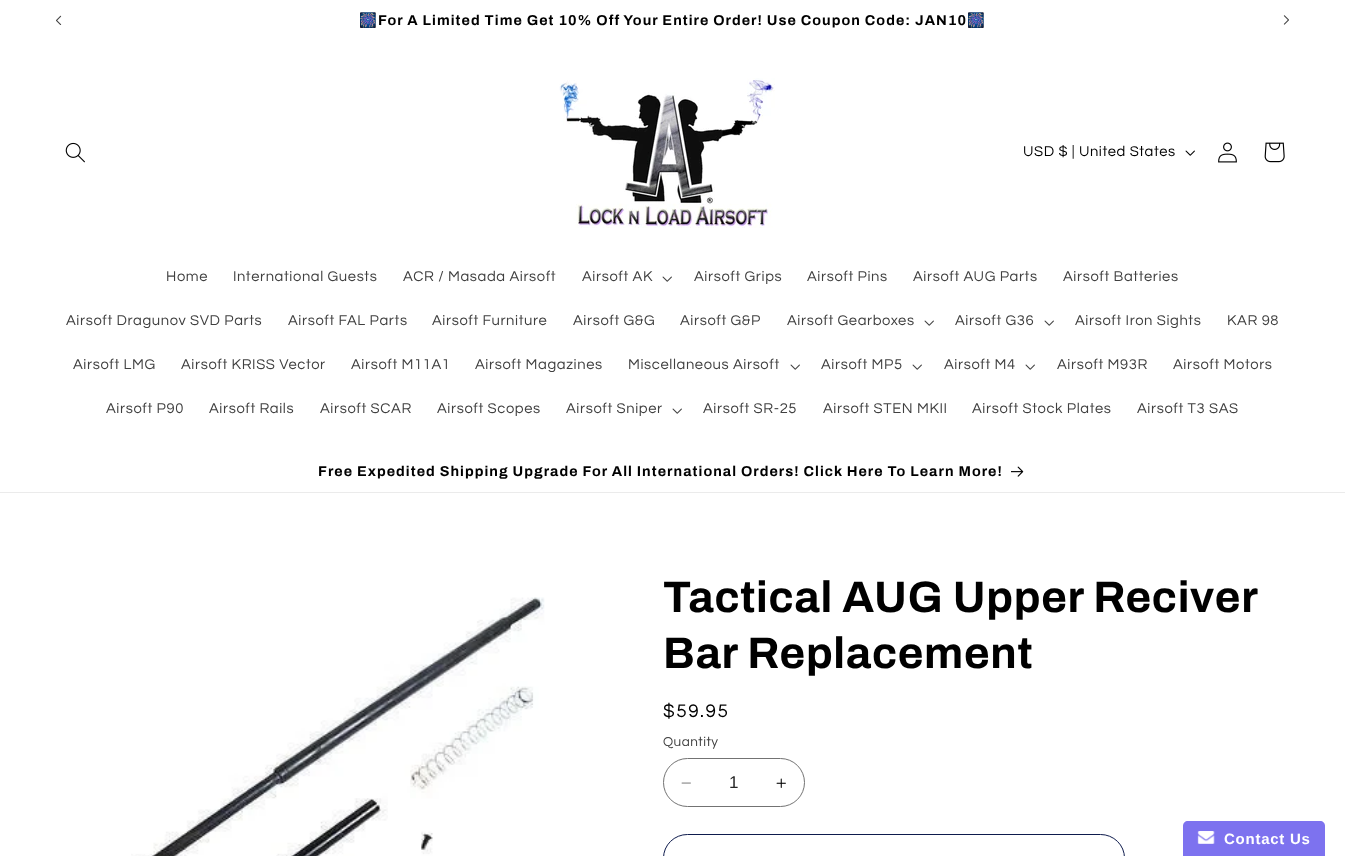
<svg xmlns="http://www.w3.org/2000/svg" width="1345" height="856">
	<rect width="100%" height="100%" fill="#FFFFFF" />
	<image x="56" y="15" width="6" height="10" href="assets/img1.png" />
	<text x="359" y="25" font-family="Noto Color Emoji" font-size="14.3" font-weight="700" letter-spacing="1.05" fill="#000000">🎆</text>
	<text x="378" y="25" font-family="Archivo" font-size="14.3" font-weight="700" letter-spacing="1.05" fill="#000000">For A Limited Time Get 10% Off Your Entire Order! Use Coupon Code: JAN10</text>
	<text x="967" y="25" font-family="Noto Color Emoji" font-size="14.3" font-weight="700" letter-spacing="1.05" fill="#000000">🎆</text>
	<image x="1283" y="15" width="6" height="10" href="assets/img2.png" />
	<image x="65" y="142" width="20" height="21" href="assets/img3.png" />
	<image x="559" y="78" width="216" height="150" href="assets/img4.png" />
	<text x="1023" y="156" font-family="Questrial" font-size="14.75" letter-spacing="0.6" fill="#000000">USD $ | United States</text>
	<image x="1185" y="150" width="10" height="6" href="assets/img5.png" />
	<image x="1218" y="142" width="19" height="21" href="assets/img6.png" />
	<image x="1264" y="142" width="21" height="21" href="assets/img7.png" />
	<g font-family="Questrial" font-size="14.75" letter-spacing="0.6" fill="#404040">
		<text x="166" y="281">Home</text>
		<text x="233" y="281">International Guests</text>
		<text x="403" y="281">ACR / Masada Airsoft</text>
		<text x="582" y="281">Airsoft AK</text>
	</g>
	<image x="662" y="276" width="10" height="6" href="assets/img8.png" />
	<g font-family="Questrial" font-size="14.75" letter-spacing="0.6" fill="#404040">
		<text x="694" y="281">Airsoft Grips</text>
		<text x="807" y="281">Airsoft Pins</text>
		<text x="913" y="281">Airsoft AUG Parts</text>
		<text x="1063" y="281">Airsoft Batteries</text>
		<text x="66" y="325">Airsoft Dragunov SVD Parts</text>
		<text x="288" y="325">Airsoft FAL Parts</text>
		<text x="432" y="325">Airsoft Furniture</text>
		<text x="573" y="325">Airsoft G&amp;G</text>
		<text x="680" y="325">Airsoft G&amp;P</text>
		<text x="787" y="325">Airsoft Gearboxes</text>
	</g>
	<image x="924" y="320" width="10" height="6" href="assets/img8.png" />
	<text x="955" y="325" font-family="Questrial" font-size="14.75" letter-spacing="0.6" fill="#404040">Airsoft G36</text>
	<image x="1044" y="320" width="10" height="6" href="assets/img8.png" />
	<g font-family="Questrial" font-size="14.75" letter-spacing="0.6" fill="#404040">
		<text x="1075" y="325">Airsoft Iron Sights</text>
		<text x="1227" y="325">KAR 98</text>
		<text x="73" y="369">Airsoft LMG</text>
		<text x="181" y="369">Airsoft KRISS Vector</text>
		<text x="351" y="369">Airsoft M11A1</text>
		<text x="475" y="369">Airsoft Magazines</text>
		<text x="628" y="369">Miscellaneous Airsoft</text>
	</g>
	<image x="790" y="364" width="10" height="6" href="assets/img8.png" />
	<text x="821" y="369" font-family="Questrial" font-size="14.75" letter-spacing="0.6" fill="#404040">Airsoft MP5</text>
	<image x="912" y="364" width="10" height="6" href="assets/img8.png" />
	<text x="944" y="369" font-family="Questrial" font-size="14.75" letter-spacing="0.6" fill="#404040">Airsoft M4</text>
	<image x="1025" y="364" width="10" height="6" href="assets/img8.png" />
	<g font-family="Questrial" font-size="14.75" letter-spacing="0.6" fill="#404040">
		<text x="1057" y="369">Airsoft M93R</text>
		<text x="1173" y="369">Airsoft Motors</text>
		<text x="106" y="413">Airsoft P90</text>
		<text x="209" y="413">Airsoft Rails</text>
		<text x="320" y="413">Airsoft SCAR</text>
		<text x="437" y="413">Airsoft Scopes</text>
		<text x="566" y="413">Airsoft Sniper</text>
	</g>
	<image x="672" y="408" width="10" height="6" href="assets/img8.png" />
	<g font-family="Questrial" font-size="14.75" letter-spacing="0.6" fill="#404040">
		<text x="703" y="413">Airsoft SR-25</text>
		<text x="823" y="413">Airsoft STEN MKII</text>
		<text x="972" y="413">Airsoft Stock Plates</text>
		<text x="1137" y="413">Airsoft T3 SAS</text>
	</g>
	<rect x="0" y="492" width="1345" height="1" fill="#EBEBEB" />
	<text x="318" y="476" font-family="Archivo" font-size="14.3" font-weight="700" letter-spacing="1.05" fill="#000000">Free Expedited Shipping Upgrade For All International Orders! Click Here To Learn More!</text>
	<image x="1011" y="466" width="13" height="11" href="assets/img9.png" />
	<image x="131" y="597" width="414" height="259" href="assets/img10.png" />
	<g font-family="Archivo" font-size="44" font-weight="700" letter-spacing="0.65" fill="#000000">
		<text x="663" y="612">Tactical AUG Upper Reciver</text>
		<text x="663" y="668">Bar Replacement</text>
	</g>
	<text x="663" y="717" font-family="Questrial" font-size="19" letter-spacing="1.5" fill="#000000">$59.95</text>
	<text x="663" y="746" font-family="Questrial" font-size="13.5" letter-spacing="0.5" fill="#404040">Quantity</text>
	<image x="681" y="782" width="10" height="2" href="assets/img11.png" />
	<image x="776" y="778" width="10" height="10" href="assets/img12.png" />
	<rect x="663.5" y="758.5" width="141" height="48" rx="24" fill="none" stroke="#737373" />
	<text x="729" y="788" font-family="Liberation Sans" font-size="17" fill="#262626">1</text>
	<rect x="663.5" y="834.5" width="461" height="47" rx="24" fill="none" stroke="#0E1B4D" />
	<path d="M1188 821H1320C1323 821 1325 823 1325 826V856H1183V826C1183 823 1185 821 1188 821Z" fill="#7D72EF" />
	<image x="1197" y="831" width="18" height="13" href="assets/img13.png" />
	<text x="1224" y="844" font-family="Liberation Sans" font-size="15" font-weight="700" letter-spacing="0.75" fill="#FFFFFF">Contact Us</text>
</svg>
